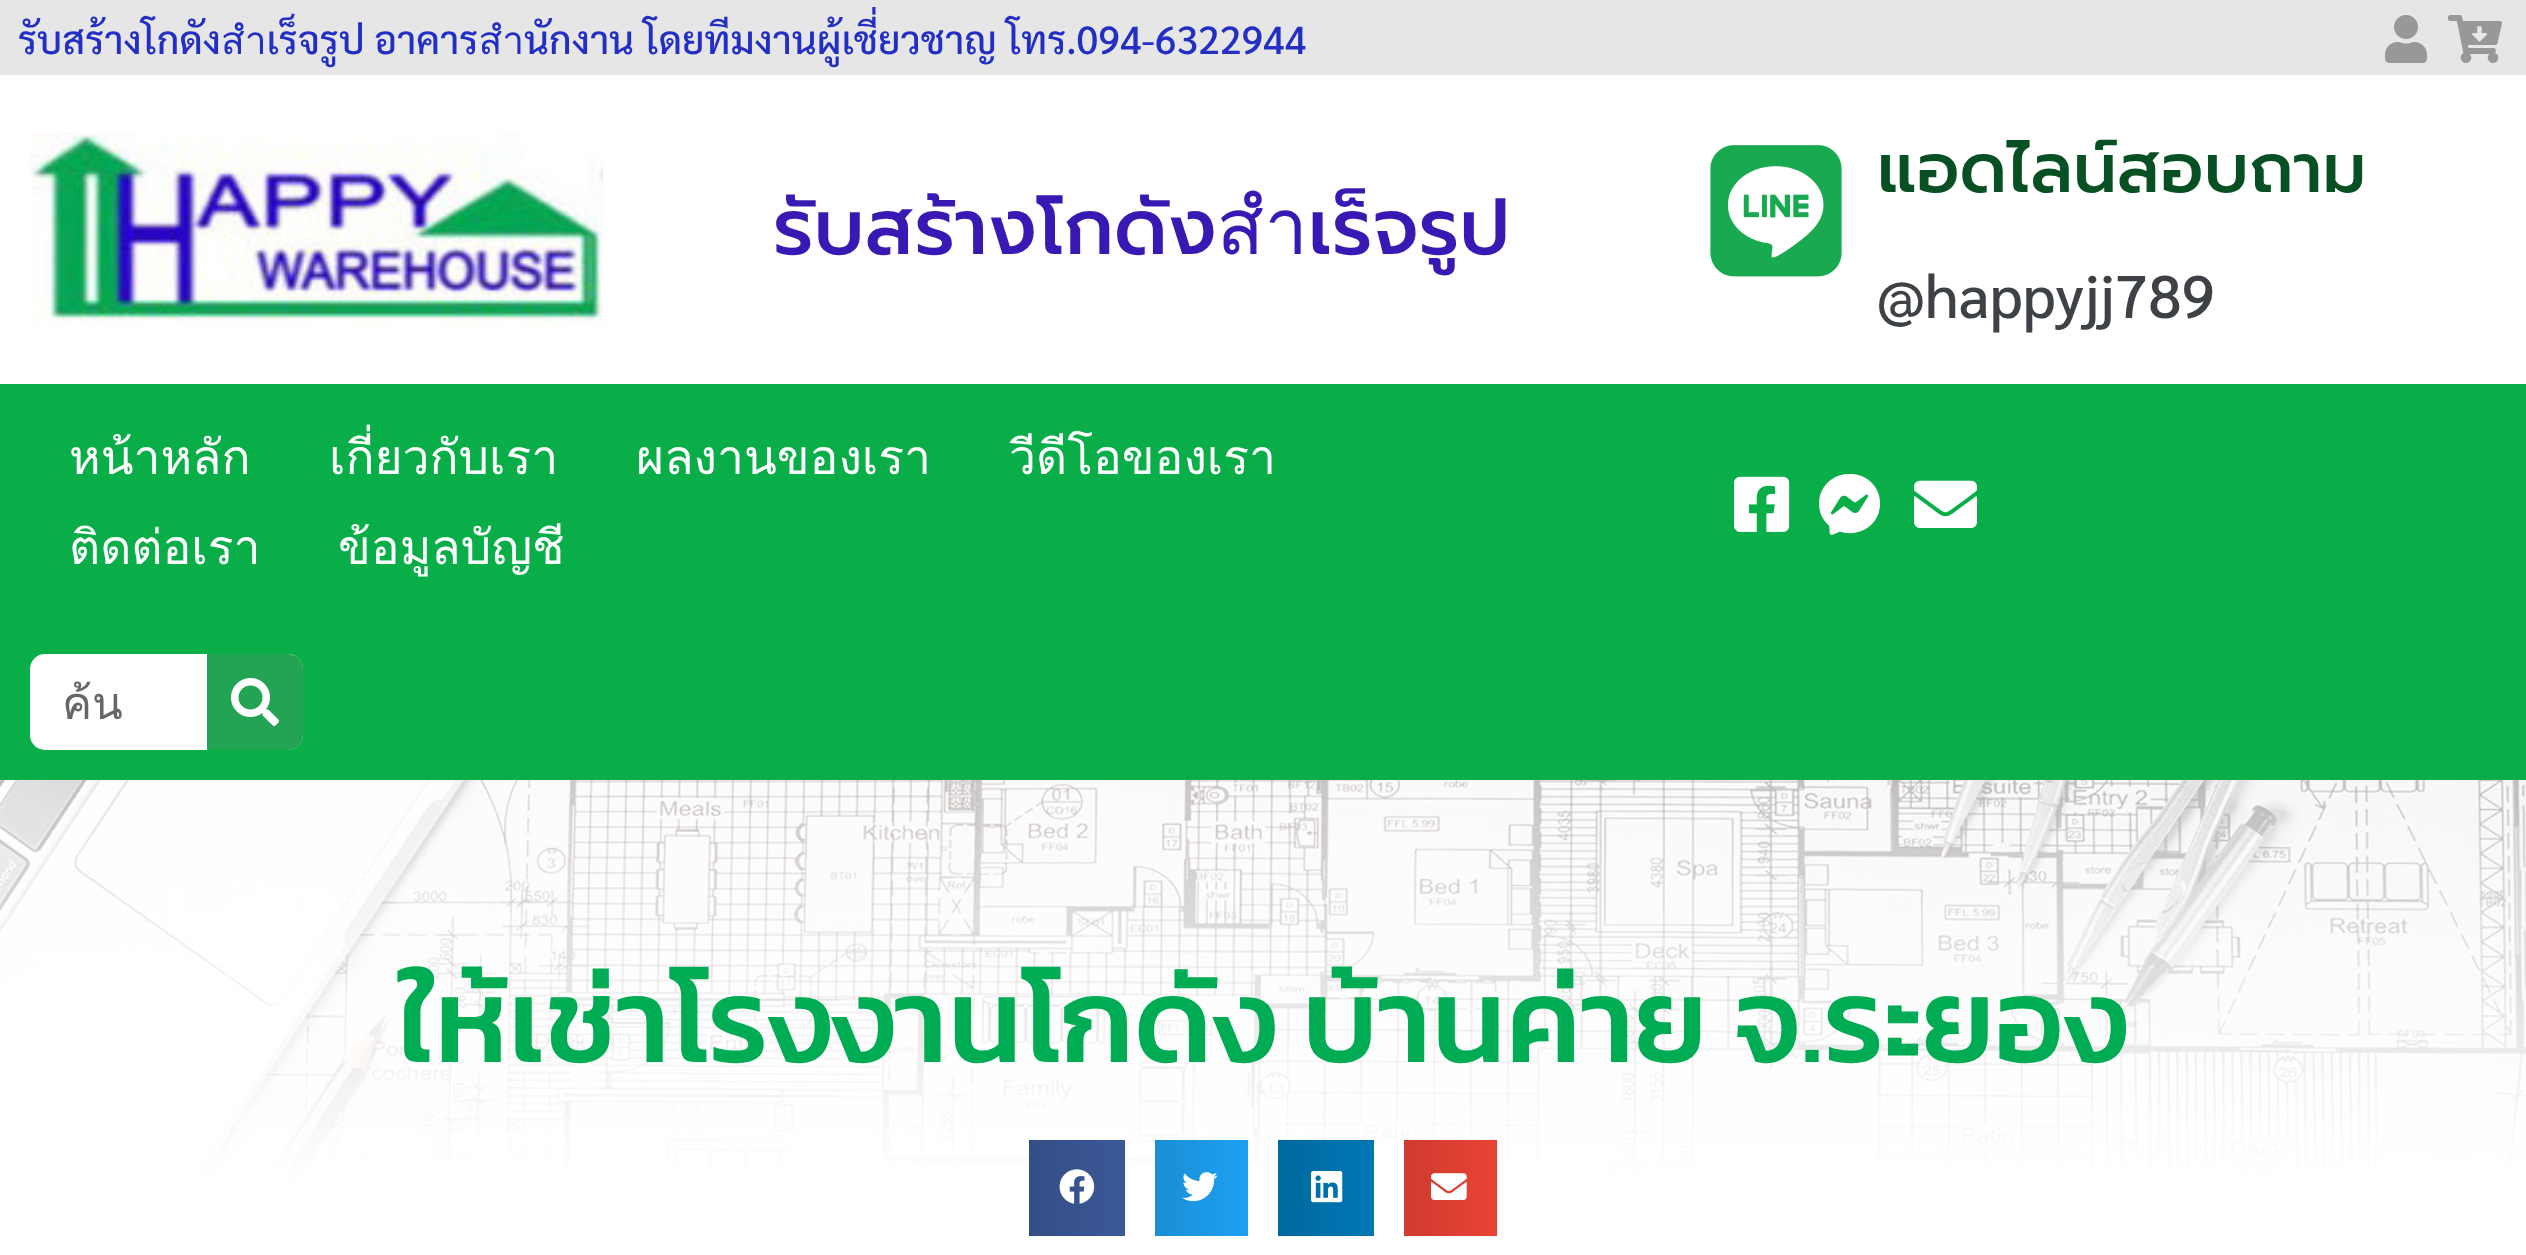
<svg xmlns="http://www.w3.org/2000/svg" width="2526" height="1255">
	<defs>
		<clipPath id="clip1"><rect x="63" y="669" width="69" height="72" /></clipPath>
		<linearGradient id="g1" gradientUnits="userSpaceOnUse" x1="1029" y1="1188" x2="1125" y2="1188"><stop offset="0" stop-color="#344E86" /><stop offset="1" stop-color="#3B5998" /></linearGradient>
		<linearGradient id="g2" gradientUnits="userSpaceOnUse" x1="1155" y1="1188" x2="1248" y2="1188"><stop offset="0" stop-color="#1A8ED5" /><stop offset="1" stop-color="#1DA1F2" /></linearGradient>
		<linearGradient id="g3" gradientUnits="userSpaceOnUse" x1="1278" y1="1188" x2="1374" y2="1188"><stop offset="0" stop-color="#00699F" /><stop offset="1" stop-color="#0077B5" /></linearGradient>
		<linearGradient id="g4" gradientUnits="userSpaceOnUse" x1="1404" y1="1188" x2="1497" y2="1188"><stop offset="0" stop-color="#CE3B2F" /><stop offset="1" stop-color="#EA4335" /></linearGradient>
	</defs>
	<rect width="100%" height="100%" fill="#FFFFFF" />
	<rect x="0" y="0" width="2526" height="75" fill="#E6E6E6" />
	<text x="18" y="54" font-family="Sarabun" font-size="39" font-weight="500" fill="#222EC4">รับสร้างโกดังสำเร็จรูป อาคารสำนักงาน โดยทีมงานผู้เชี่ยวชาญ โทร.094-6322944</text>
	<image x="2385" y="15" width="42" height="48" href="assets/img1.png" />
	<image x="2448" y="15" width="54" height="48" href="assets/img2.png" />
	<image x="30" y="132" width="573" height="195" href="assets/img3.png" />
	<text x="773" y="254" font-family="Prompt" font-size="78" font-weight="500" fill="#3819B4">รับสร้างโกดังสำเร็จรูป</text>
	<image x="1710" y="145" width="132" height="132" href="assets/img4.png" />
	<text x="1877" y="192" font-family="Prompt" font-size="69" font-weight="500" fill="#075023">แอดไลน์สอบถาม</text>
	<text x="1877" y="318" font-family="Sarabun" font-size="60" font-weight="500" fill="#3E4246">@happyjj789</text>
	<rect x="0" y="384" width="2526" height="396" fill="#09AE49" />
	<g font-family="Loma" font-size="48" fill="#FFFFFF">
		<text x="69" y="474">หน้าหลัก</text>
		<text x="329" y="474">เกี่ยวกับเรา</text>
		<text x="636" y="474">ผลงานของเรา</text>
		<text x="1009" y="474">วีดีโอของเรา</text>
		<text x="69" y="564">ติดต่อเรา</text>
		<text x="338" y="564">ข้อมูลบัญชี</text>
	</g>
	<image x="1734" y="476" width="56" height="56" href="assets/img5.png" />
	<image x="1819" y="474" width="61" height="61" href="assets/img6.png" />
	<image x="1914" y="480" width="63" height="48" href="assets/img7.png" />
	<rect x="30" y="654" width="273" height="96" rx="15" fill="#FFFFFF" />
	<g clip-path="url(#clip1)">
		<text x="62" y="719" font-family="Loma" font-size="45" fill="#666666">ค้น</text>
	</g>
	<path d="M207 654H288C296.5 654 303 660.5 303 669V735C303 743.5 296.5 750 288 750H207Z" fill="#23A455" />
	<image x="231" y="678" width="48" height="48" href="assets/img8.png" />
	<image x="0" y="780" width="2526" height="475" href="assets/img9.png" />
	<text x="399" y="1062" font-family="Kanit" font-size="120" font-weight="500" fill="#00AC53">ให้เช่าโรงงานโกดัง บ้านค่าย จ.ระยอง</text>
	<rect x="1029" y="1140" width="96" height="96" fill="url(#g1)" />
	<image x="1059" y="1169" width="36" height="35" href="assets/img10.png" />
	<rect x="1155" y="1140" width="93" height="96" fill="url(#g2)" />
	<image x="1182" y="1172" width="36" height="30" href="assets/img11.png" />
	<rect x="1278" y="1140" width="96" height="96" fill="url(#g3)" />
	<image x="1311" y="1171" width="32" height="32" href="assets/img12.png" />
	<rect x="1404" y="1140" width="93" height="96" fill="url(#g4)" />
	<image x="1431" y="1173" width="36" height="27" href="assets/img13.png" />
</svg>
